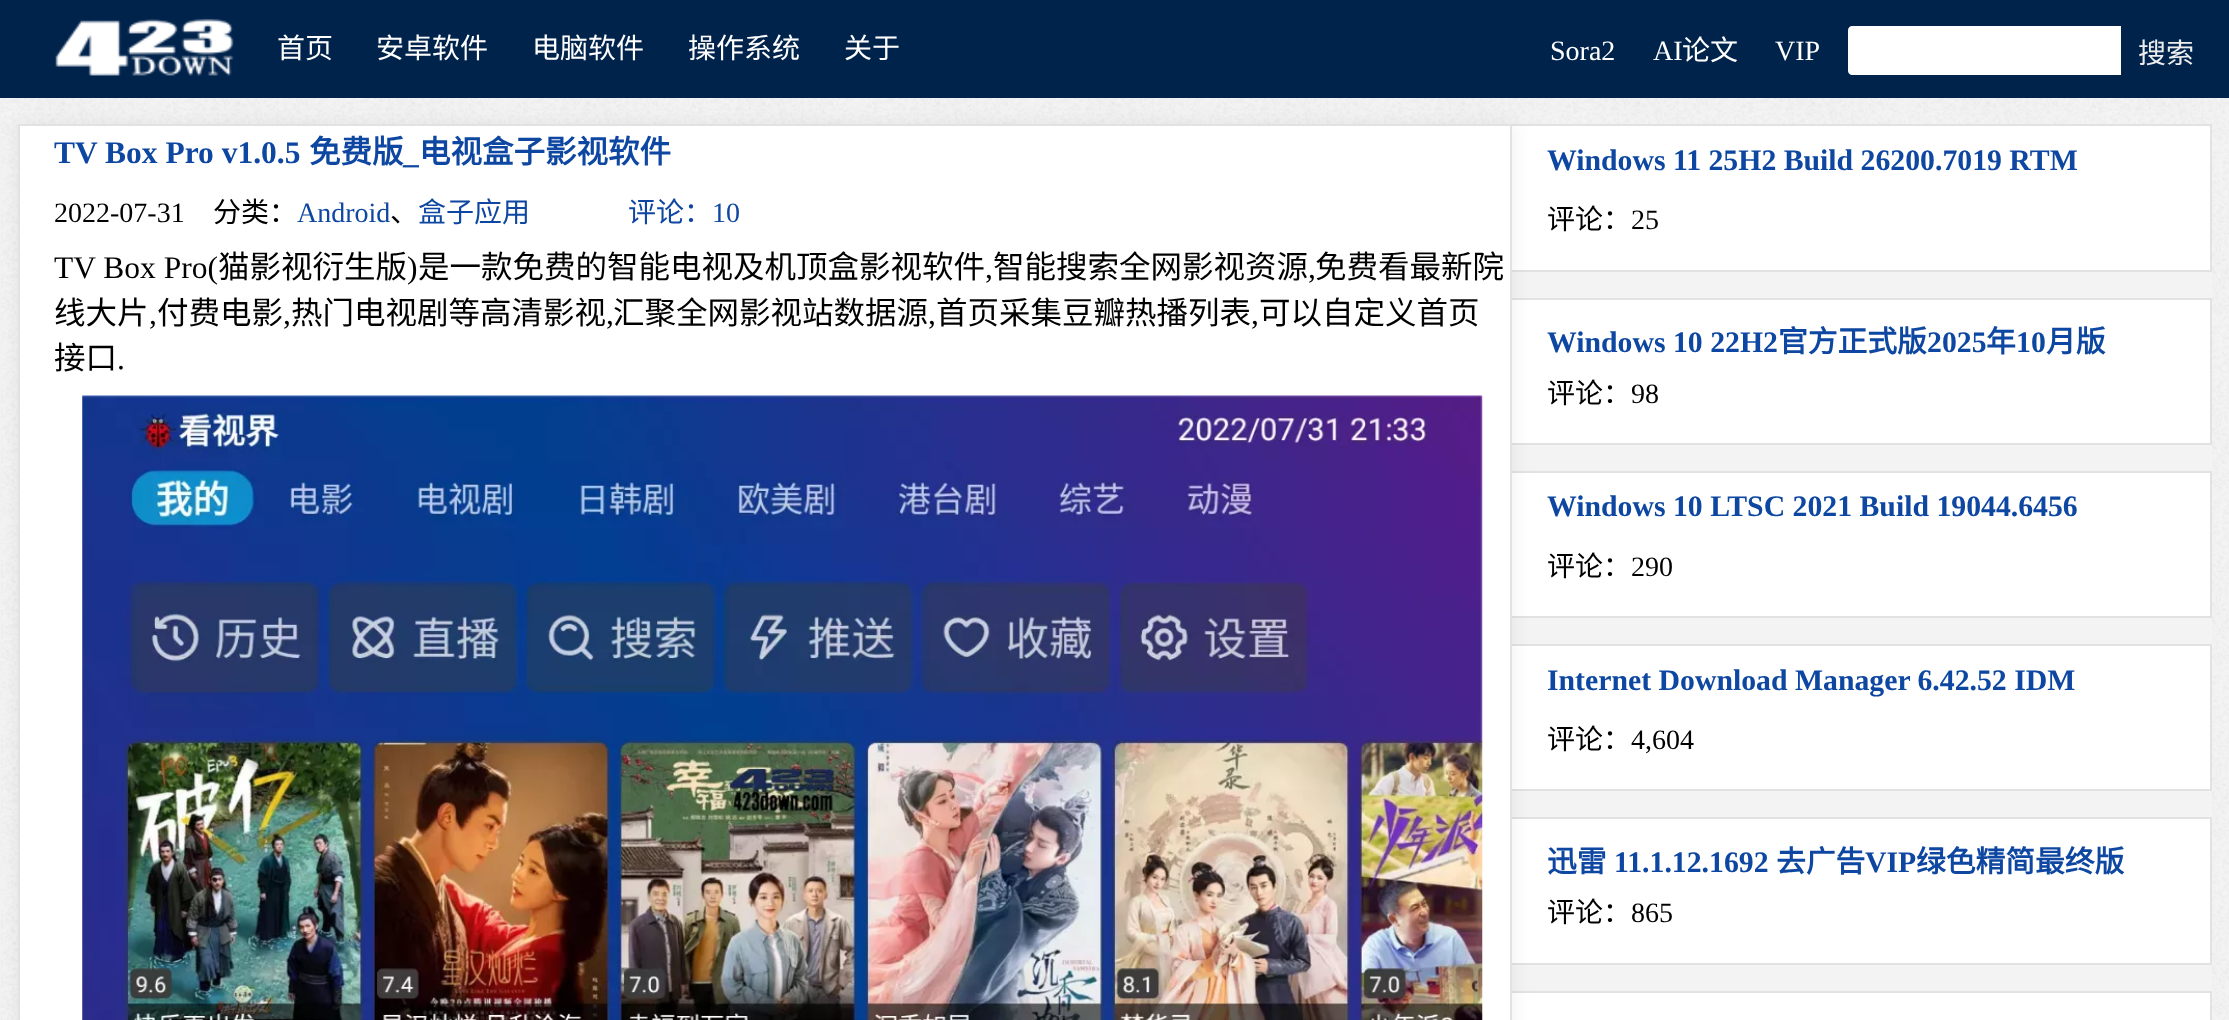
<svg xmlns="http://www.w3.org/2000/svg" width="2229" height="1020">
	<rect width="100%" height="100%" fill="#F1F1F1" />
	<image x="1" y="98" width="2228" height="922" href="assets/img1.png" />
	<rect x="1512" y="126" width="698" height="144" fill="#FFFFFF" />
	<rect x="1512" y="124" width="700" height="2" fill="#E2E2E2" />
	<rect x="2210" y="124" width="2" height="147" fill="#E2E2E2" />
	<rect x="1512" y="270" width="700" height="2" fill="#E2E2E2" />
	<rect x="1512" y="272" width="700" height="719" fill="#F3F3F3" />
	<rect x="1512" y="300" width="698" height="143" fill="#FFFFFF" />
	<rect x="1512" y="298" width="700" height="2" fill="#E2E2E2" />
	<rect x="2210" y="298" width="2" height="147" fill="#E2E2E2" />
	<rect x="1512" y="443" width="700" height="2" fill="#E2E2E2" />
	<rect x="1512" y="473" width="698" height="143" fill="#FFFFFF" />
	<rect x="1512" y="471" width="700" height="2" fill="#E2E2E2" />
	<rect x="2210" y="471" width="2" height="147" fill="#E2E2E2" />
	<rect x="1512" y="616" width="700" height="2" fill="#E2E2E2" />
	<rect x="1512" y="646" width="698" height="143" fill="#FFFFFF" />
	<rect x="1512" y="644" width="700" height="2" fill="#E2E2E2" />
	<rect x="2210" y="644" width="2" height="147" fill="#E2E2E2" />
	<rect x="1512" y="789" width="700" height="2" fill="#E2E2E2" />
	<rect x="1512" y="819" width="698" height="144" fill="#FFFFFF" />
	<rect x="1512" y="817" width="700" height="2" fill="#E2E2E2" />
	<rect x="2210" y="817" width="2" height="147" fill="#E2E2E2" />
	<rect x="1512" y="963" width="700" height="2" fill="#E2E2E2" />
	<rect x="1512" y="993" width="698" height="27" fill="#FFFFFF" />
	<rect x="1512" y="991" width="700" height="2" fill="#E2E2E2" />
	<rect x="16" y="123" width="1498" height="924" fill="#000000" fill-opacity="0.05" filter="blur(9px)" />
	<rect x="0" y="0" width="2229" height="98" fill="#00234C" />
	<image x="55" y="18" width="179" height="58" href="assets/img2.png" />
	<g font-family="Noto Sans CJK SC" font-size="28" fill="#FFFFFF">
		<text x="277" y="58">首页</text>
		<text x="376" y="58">安卓软件</text>
		<text x="532" y="58">电脑软件</text>
		<text x="688" y="58">操作系统</text>
		<text x="844" y="58">关于</text>
	</g>
	<g font-family="Liberation Serif" font-size="28" fill="#FFFFFF">
		<text x="1550" y="60">Sora2</text>
		<text x="1653" y="60">AI</text>
	</g>
	<text x="1682" y="60" font-family="Noto Sans CJK SC" font-size="28" fill="#FFFFFF">论文</text>
	<text x="1775" y="60" font-family="Liberation Serif" font-size="28" fill="#FFFFFF">VIP</text>
	<path d="M1852 26H2121V75H1852C1850 75 1848 73 1848 71V30C1848 28 1850 26 1852 26Z" fill="#FFFFFF" />
	<text x="2138" y="63" font-family="Noto Sans CJK SC" font-size="28" fill="#EEEEEE">搜索</text>
	<rect x="19" y="125" width="1492" height="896" fill="#FFFFFF" stroke="#E2E2E2" stroke-width="2" />
	<text x="54" y="163" font-family="Liberation Serif" font-size="31.5" font-weight="700" fill="#0E47A1">TV Box Pro v1.0.5</text>
	<g font-family="Noto Sans CJK SC" font-size="31.5" font-weight="700" fill="#0E47A1">
		<text x="309" y="163">免费版</text>
		<text x="419" y="163">电视盒子影视软件</text>
	</g>
	<text x="403" y="163" font-family="Liberation Serif" font-size="31.5" font-weight="700" fill="#0E47A1">_</text>
	<text x="54" y="222" font-family="Liberation Serif" font-size="28" fill="#000000">2022-07-31</text>
	<text x="213" y="222" font-family="Noto Sans CJK SC" font-size="28" fill="#000000">分类：</text>
	<text x="297" y="222" font-family="Liberation Serif" font-size="28" fill="#0E47A1">Android</text>
	<text x="390" y="222" font-family="Noto Sans CJK SC" font-size="28" fill="#000000">、</text>
	<g font-family="Noto Sans CJK SC" font-size="28" fill="#0E47A1">
		<text x="418" y="222">盒子应用</text>
		<text x="628" y="222">评论：</text>
	</g>
	<text x="712" y="222" font-family="Liberation Serif" font-size="28" fill="#0E47A1">10</text>
	<text x="54" y="278" font-family="Liberation Serif" font-size="31.5" fill="#000000">TV Box Pro(</text>
	<text x="218" y="278" font-family="Noto Sans CJK SC" font-size="31.5" fill="#000000">猫影视衍生版</text>
	<text x="407" y="278" font-family="Liberation Serif" font-size="31.5" fill="#000000">)</text>
	<text x="418" y="278" font-family="Noto Sans CJK SC" font-size="31.5" fill="#000000">是一款免费的智能电视及机顶盒影视软件</text>
	<text x="985" y="278" font-family="Liberation Serif" font-size="31.5" fill="#000000">,</text>
	<text x="993" y="278" font-family="Noto Sans CJK SC" font-size="31.5" fill="#000000">智能搜索全网影视资源</text>
	<text x="1308" y="278" font-family="Liberation Serif" font-size="31.5" fill="#000000">,</text>
	<g font-family="Noto Sans CJK SC" font-size="31.5" fill="#000000">
		<text x="1315" y="278">免费看最新院</text>
		<text x="54" y="324">线大片</text>
	</g>
	<text x="149" y="324" font-family="Liberation Serif" font-size="31.5" fill="#000000">,</text>
	<text x="157" y="324" font-family="Noto Sans CJK SC" font-size="31.5" fill="#000000">付费电影</text>
	<text x="283" y="324" font-family="Liberation Serif" font-size="31.5" fill="#000000">,</text>
	<text x="291" y="324" font-family="Noto Sans CJK SC" font-size="31.5" fill="#000000">热门电视剧等高清影视</text>
	<text x="606" y="324" font-family="Liberation Serif" font-size="31.5" fill="#000000">,</text>
	<text x="613" y="324" font-family="Noto Sans CJK SC" font-size="31.5" fill="#000000">汇聚全网影视站数据源</text>
	<text x="928" y="324" font-family="Liberation Serif" font-size="31.5" fill="#000000">,</text>
	<text x="936" y="324" font-family="Noto Sans CJK SC" font-size="31.5" fill="#000000">首页采集豆瓣热播列表</text>
	<text x="1251" y="324" font-family="Liberation Serif" font-size="31.5" fill="#000000">,</text>
	<g font-family="Noto Sans CJK SC" font-size="31.5" fill="#000000">
		<text x="1259" y="324">可以自定义首页</text>
		<text x="54" y="369">接口</text>
	</g>
	<text x="117" y="369" font-family="Liberation Serif" font-size="31.5" fill="#000000">.</text>
	<image x="82" y="395" width="1401" height="625" href="assets/img3.png" />
	<text x="1547" y="170" font-family="Liberation Serif" font-size="29.75" font-weight="700" fill="#0E47A1">Windows 11 25H2 Build 26200.7019 RTM</text>
	<text x="1547" y="229" font-family="Noto Sans CJK SC" font-size="28" fill="#000000">评论：</text>
	<text x="1631" y="229" font-family="Liberation Serif" font-size="28" fill="#000000">25</text>
	<text x="1547" y="352" font-family="Liberation Serif" font-size="29.75" font-weight="700" fill="#0E47A1">Windows 10 22H2</text>
	<text x="1778" y="352" font-family="Noto Sans CJK SC" font-size="29.75" font-weight="700" fill="#0E47A1">官方正式版</text>
	<text x="1927" y="352" font-family="Liberation Serif" font-size="29.75" font-weight="700" fill="#0E47A1">2025</text>
	<text x="1986" y="352" font-family="Noto Sans CJK SC" font-size="29.75" font-weight="700" fill="#0E47A1">年</text>
	<text x="2016" y="352" font-family="Liberation Serif" font-size="29.75" font-weight="700" fill="#0E47A1">10</text>
	<text x="2046" y="352" font-family="Noto Sans CJK SC" font-size="29.75" font-weight="700" fill="#0E47A1">月版</text>
	<text x="1547" y="403" font-family="Noto Sans CJK SC" font-size="28" fill="#000000">评论：</text>
	<text x="1631" y="403" font-family="Liberation Serif" font-size="28" fill="#000000">98</text>
	<text x="1547" y="516" font-family="Liberation Serif" font-size="29.75" font-weight="700" fill="#0E47A1">Windows 10 LTSC 2021 Build 19044.6456</text>
	<text x="1547" y="576" font-family="Noto Sans CJK SC" font-size="28" fill="#000000">评论：</text>
	<text x="1631" y="576" font-family="Liberation Serif" font-size="28" fill="#000000">290</text>
	<text x="1547" y="690" font-family="Liberation Serif" font-size="29.75" font-weight="700" fill="#0E47A1">Internet Download Manager 6.42.52 IDM</text>
	<text x="1547" y="749" font-family="Noto Sans CJK SC" font-size="28" fill="#000000">评论：</text>
	<text x="1631" y="749" font-family="Liberation Serif" font-size="28" fill="#000000">4,604</text>
	<text x="1547" y="872" font-family="Noto Sans CJK SC" font-size="29.75" font-weight="700" fill="#0E47A1">迅雷</text>
	<text x="1614" y="872" font-family="Liberation Serif" font-size="29.75" font-weight="700" fill="#0E47A1">11.1.12.1692</text>
	<text x="1776" y="872" font-family="Noto Sans CJK SC" font-size="29.75" font-weight="700" fill="#0E47A1">去广告</text>
	<text x="1865" y="872" font-family="Liberation Serif" font-size="29.75" font-weight="700" fill="#0E47A1">VIP</text>
	<text x="1916" y="872" font-family="Noto Sans CJK SC" font-size="29.75" font-weight="700" fill="#0E47A1">绿色精简最终版</text>
	<text x="1547" y="922" font-family="Noto Sans CJK SC" font-size="28" fill="#000000">评论：</text>
	<text x="1631" y="922" font-family="Liberation Serif" font-size="28" fill="#000000">865</text>
	<rect x="2210" y="991" width="2" height="29" fill="#E2E2E2" />
</svg>
